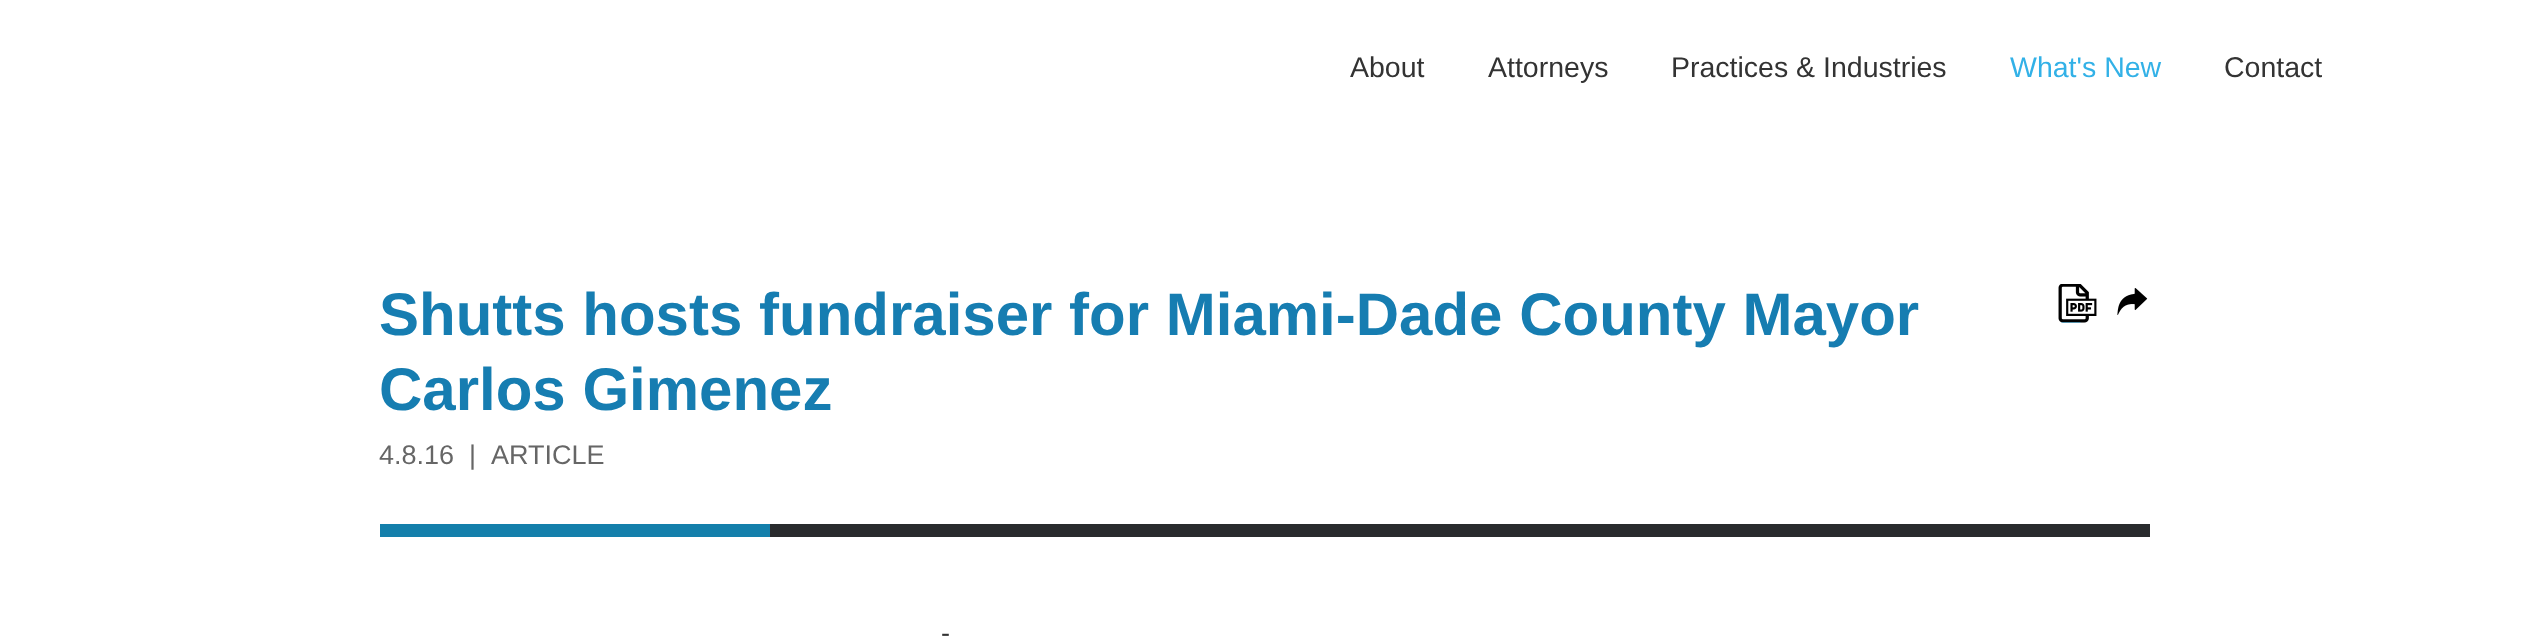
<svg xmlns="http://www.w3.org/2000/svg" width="2527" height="636">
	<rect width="100%" height="100%" fill="#FFFFFF" />
	<g font-family="Liberation Sans" font-size="28.5" fill="#333333">
		<text x="1350" y="77">About</text>
		<text x="1488" y="77">Attorneys</text>
		<text x="1671" y="77">Practices &amp; Industries</text>
	</g>
	<text x="2010" y="77" font-family="Liberation Sans" font-size="28.5" fill="#32B1E7">What's New</text>
	<text x="2224" y="77" font-family="Liberation Sans" font-size="28.5" fill="#333333">Contact</text>
	<g font-family="Liberation Sans" font-size="60" font-weight="700" fill="#167DB1">
		<text x="379" y="335">Shutts hosts fundraiser for Miami-Dade County Mayor</text>
		<text x="379" y="410">Carlos Gimenez</text>
	</g>
	<image x="2058" y="284" width="39" height="39" href="assets/img1.png" />
	<image x="2117" y="288" width="31" height="27" href="assets/img2.png" />
	<g font-family="Liberation Sans" font-size="27" fill="#666666">
		<text x="379" y="464">4.8.16</text>
		<text x="469" y="464">|</text>
		<text x="491" y="464">ARTICLE</text>
	</g>
	<rect x="380" y="524" width="390" height="13" fill="#147FAB" />
	<rect x="770" y="524" width="1380" height="13" fill="#292B2D" />
	<text x="941" y="642" font-family="Liberation Sans" font-size="27" fill="#333333">-</text>
</svg>
